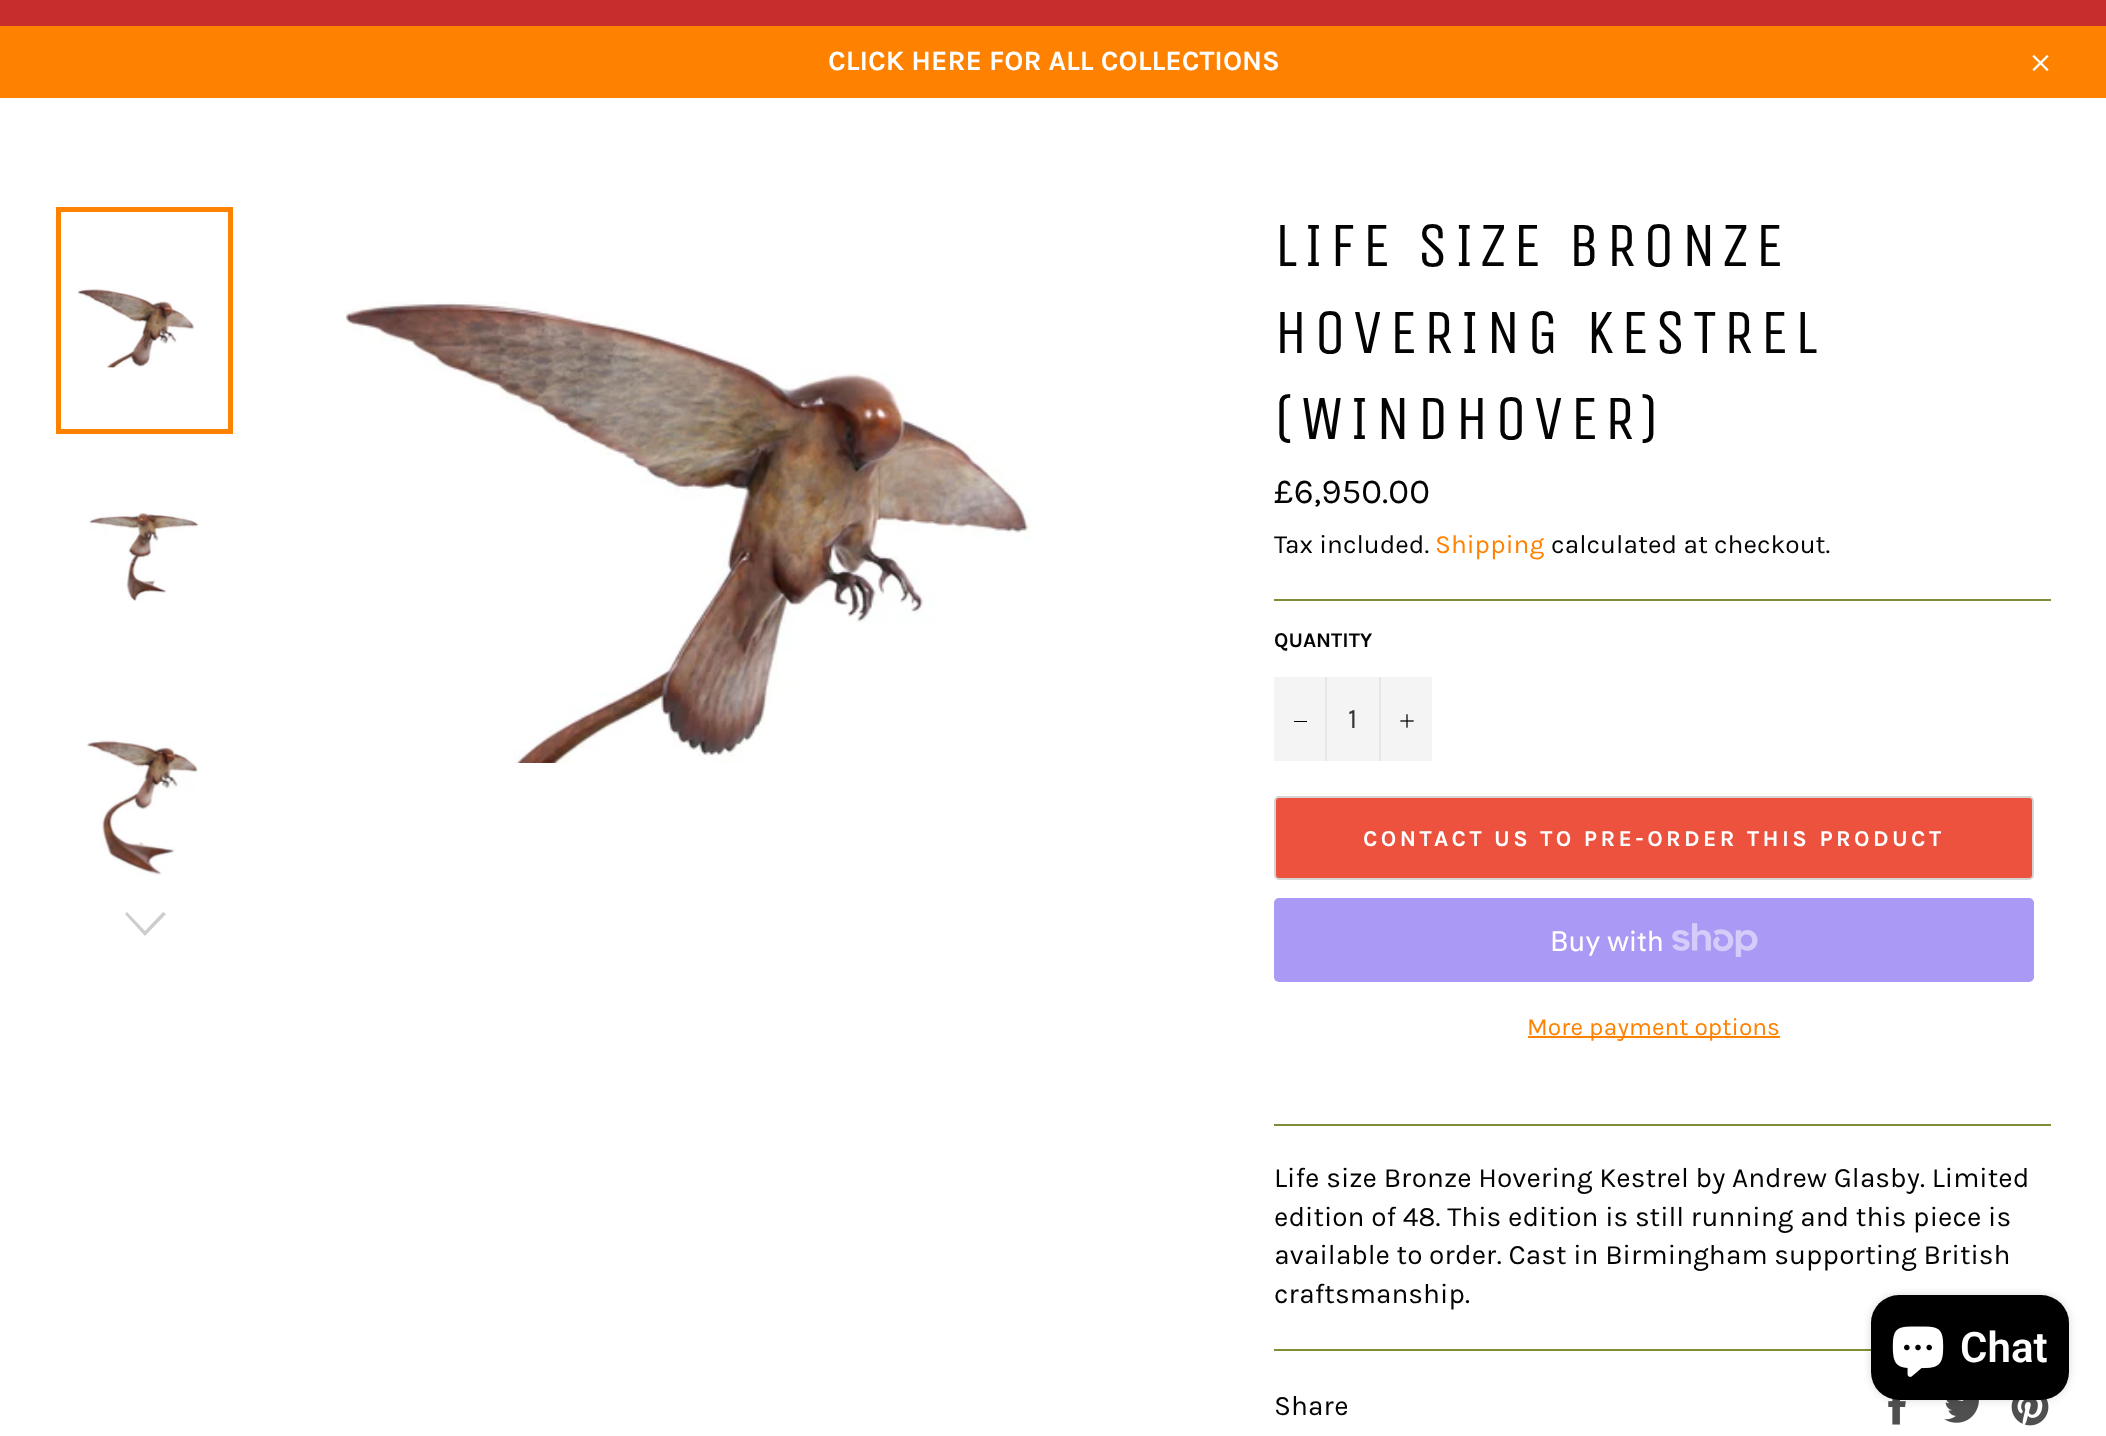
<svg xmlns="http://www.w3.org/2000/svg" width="2106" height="1436">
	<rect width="100%" height="100%" fill="#FF8100" />
	<rect x="0" y="0" width="2106" height="26" fill="#C72D2D" />
	<text x="828" y="70" font-family="Karla" font-size="28" font-weight="700" fill="#FFFFFF">CLICK HERE FOR ALL COLLECTIONS</text>
	<image x="2032" y="55" width="17" height="16" href="assets/img1.png" />
	<rect x="0" y="98" width="2106" height="1338" fill="#FFFFFF" />
	<image x="77" y="287" width="118" height="82" href="assets/img2.png" />
	<rect x="58.5" y="209.5" width="172" height="222" fill="none" stroke="#FF8100" stroke-width="5" />
	<image x="88" y="512" width="111" height="90" href="assets/img3.png" />
	<image x="87" y="740" width="111" height="136" href="assets/img4.png" />
	<path d="M163 912L166 914L145 936L125 914L127 912L145 931Z" fill="#CDCDCD" />
	<image x="344" y="301" width="687" height="462" href="assets/img5.png" />
	<g font-family="Unica One" font-size="63" letter-spacing="6.25" fill="#030303">
		<text x="1274" y="266">LIFE SIZE BRONZE</text>
		<text x="1274" y="353">HOVERING KESTREL</text>
		<text x="1274" y="439">(WINDHOVER)</text>
	</g>
	<text x="1274" y="503" font-family="Karla" font-size="35" fill="#030303">£6,950.00</text>
	<text x="1274" y="553" font-family="Karla" font-size="26.25" fill="#030303">Tax included.</text>
	<text x="1435" y="553" font-family="Karla" font-size="26.25" fill="#FF8100">Shipping</text>
	<text x="1551" y="553" font-family="Karla" font-size="26.25" fill="#030303">calculated at checkout.</text>
	<rect x="1274" y="599" width="777" height="2" fill="#828C38" />
	<text x="1274" y="647" font-family="Karla" font-size="21" font-weight="700" fill="#030303">QUANTITY</text>
	<rect x="1274" y="677" width="158" height="84" fill="#F4F4F4" />
	<rect x="1325" y="677" width="2" height="84" fill="#E7E7E7" />
	<rect x="1294" y="721" width="13" height="1" fill="#030303" />
	<text x="1348" y="728" font-family="Karla" font-size="28" fill="#333333">1</text>
	<rect x="1379" y="677" width="2" height="84" fill="#E7E7E7" />
	<image x="1400" y="714" width="14" height="14" href="assets/img6.png" />
	<rect x="1275" y="797" width="758" height="82" rx="4" fill="#EC523E" stroke="#D5D5D5" stroke-width="2" />
	<text x="1363" y="846" font-family="Karla" font-size="22.75" font-weight="700" letter-spacing="3.4" fill="#FFFFFF">CONTACT US TO PRE-ORDER THIS PRODUCT</text>
	<rect x="1274" y="898" width="760" height="84" rx="5" fill="#AA99F5" />
	<text x="1550" y="951" font-family="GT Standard" font-size="28" fill="#FFFFFF">Buy with</text>
	<image x="1672" y="923" width="86" height="34" href="assets/img7.png" />
	<rect x="1528" y="1036" width="252" height="2" fill="#FF8100" />
	<text x="1527" y="1035" font-family="Karla" font-size="24.5" fill="#FF8100">More payment options</text>
	<rect x="1274" y="1124" width="777" height="2" fill="#828C38" />
	<g font-family="Karla" font-size="28" fill="#030303">
		<text x="1274" y="1187">Life size Bronze Hovering Kestrel by Andrew Glasby. Limited</text>
		<text x="1274" y="1226">edition of 48. This edition is still running and this piece is</text>
		<text x="1274" y="1264">available to order. Cast in Birmingham supporting British</text>
		<text x="1274" y="1303">craftsmanship.</text>
	</g>
	<rect x="1274" y="1349" width="597" height="2" fill="#828C38" />
	<text x="1274" y="1415" font-family="Karla" font-size="28" fill="#030303">Share</text>
	<image x="1888" y="1399" width="18" height="26" href="assets/img8.png" />
	<image x="1944" y="1400" width="35" height="23" href="assets/img9.png" />
	<image x="2011" y="1399" width="38" height="27" href="assets/img10.png" />
	<rect x="1871" y="1295" width="198" height="105" rx="28" fill="#000000" fill-opacity="0.15" filter="blur(4.5px)" />
	<rect x="1871" y="1295" width="198" height="105" rx="28" fill="#000000" />
	<image x="1892" y="1326" width="52" height="51" href="assets/img11.png" />
	<text x="1960" y="1362" font-family="Roboto" font-size="42" font-weight="600" fill="#FFFFFF">Chat</text>
</svg>
